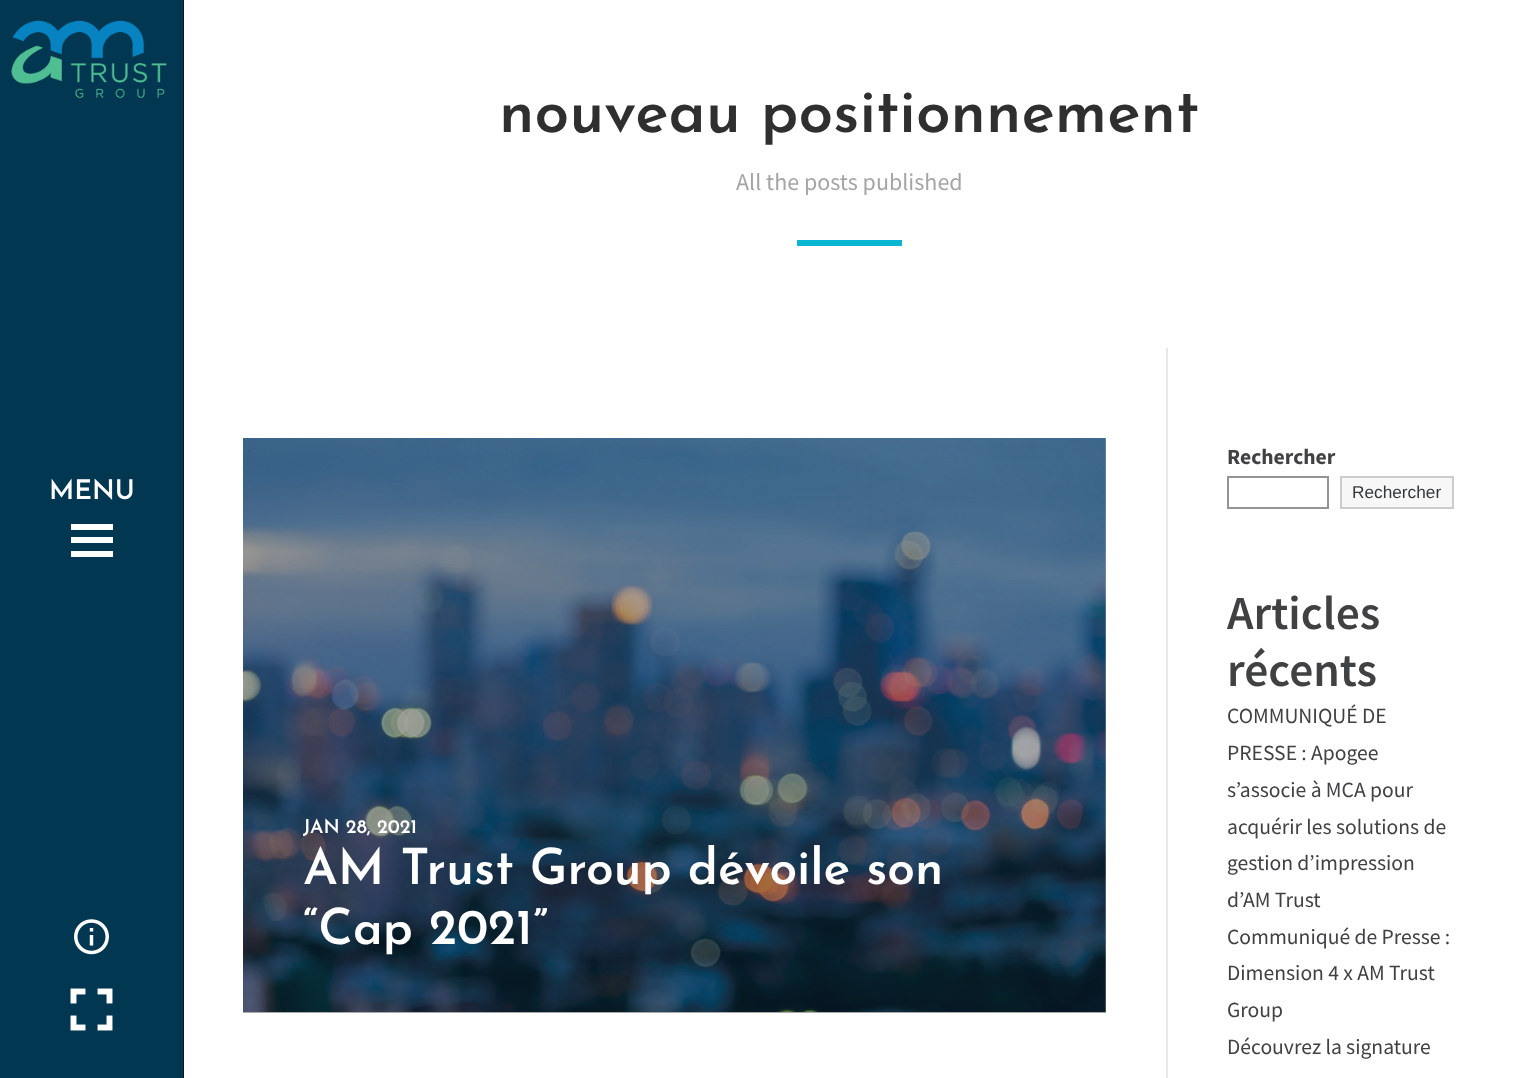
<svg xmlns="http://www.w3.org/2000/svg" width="1515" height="1078">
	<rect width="100%" height="100%" fill="#FFFFFF" />
	<rect x="243" y="438" width="863" height="575" fill="#A9A9A9" />
	<rect x="0" y="0" width="183" height="1078" fill="#023751" />
	<image x="11" y="20" width="156" height="78" href="assets/img1.png" />
	<text x="49" y="499" font-family="Josefin Sans" font-size="27" font-weight="600" fill="#FFFFFF">MENU</text>
	<rect x="71" y="524" width="42" height="6" fill="#FFFFFF" />
	<rect x="71" y="537" width="42" height="6" fill="#FFFFFF" />
	<rect x="71" y="551" width="42" height="6" fill="#FFFFFF" />
	<image x="74" y="919" width="35" height="36" href="assets/img2.png" />
	<image x="70" y="988" width="43" height="43" href="assets/img3.png" />
	<rect x="183" y="0" width="1" height="1078" fill="#171717" />
	<text x="499" y="132" font-family="Josefin Sans" font-size="62.4" font-weight="600" fill="#2F2F2F">nouveau positionnement</text>
	<text x="736" y="190" font-family="Source Sans Pro" font-size="24" fill="#A5A5A5">All the posts published</text>
	<rect x="797" y="240" width="105" height="6" fill="#0AB6D1" />
	<image x="243" y="438" width="863" height="574" href="assets/img4.png" />
	<text x="303" y="833" font-family="Josefin Sans" font-size="19.25" font-weight="600" fill="#FFFFFF">JAN 28, 2021</text>
	<g font-family="Josefin Sans" font-size="49.9" font-weight="600" fill="#FFFFFF">
		<text x="303" y="884">AM Trust Group dévoile son</text>
		<text x="303" y="944">“Cap 2021”</text>
	</g>
	<rect x="1166" y="348" width="2" height="730" fill="#E8E8E8" />
	<text x="1227" y="464" font-family="Source Sans Pro" font-size="21.6" font-weight="700" fill="#404142">Rechercher</text>
	<rect x="1228" y="477" width="100" height="31" fill="none" stroke="#949494" stroke-width="2" />
	<rect x="1341" y="477" width="112" height="31" fill="#F7F7F7" stroke="#CCCCCC" stroke-width="2" />
	<text x="1352" y="498" font-family="Liberation Sans" font-size="17.25" fill="#32373C">Rechercher</text>
	<g font-family="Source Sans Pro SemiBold" font-size="47.5" font-weight="600" fill="#404142">
		<text x="1227" y="629">Articles</text>
		<text x="1227" y="686">récents</text>
	</g>
	<g font-family="Source Sans Pro" font-size="21.6" fill="#404142">
		<text x="1227" y="723">COMMUNIQUÉ DE</text>
		<text x="1227" y="760">PRESSE : Apogee</text>
		<text x="1227" y="797">s’associe à MCA pour</text>
		<text x="1227" y="834">acquérir les solutions de</text>
		<text x="1227" y="870">gestion d’impression</text>
		<text x="1227" y="907">d’AM Trust</text>
		<text x="1227" y="944">Communiqué de Presse :</text>
		<text x="1227" y="980">Dimension 4 x AM Trust</text>
		<text x="1227" y="1017">Group</text>
		<text x="1227" y="1054">Découvrez la signature</text>
	</g>
</svg>
